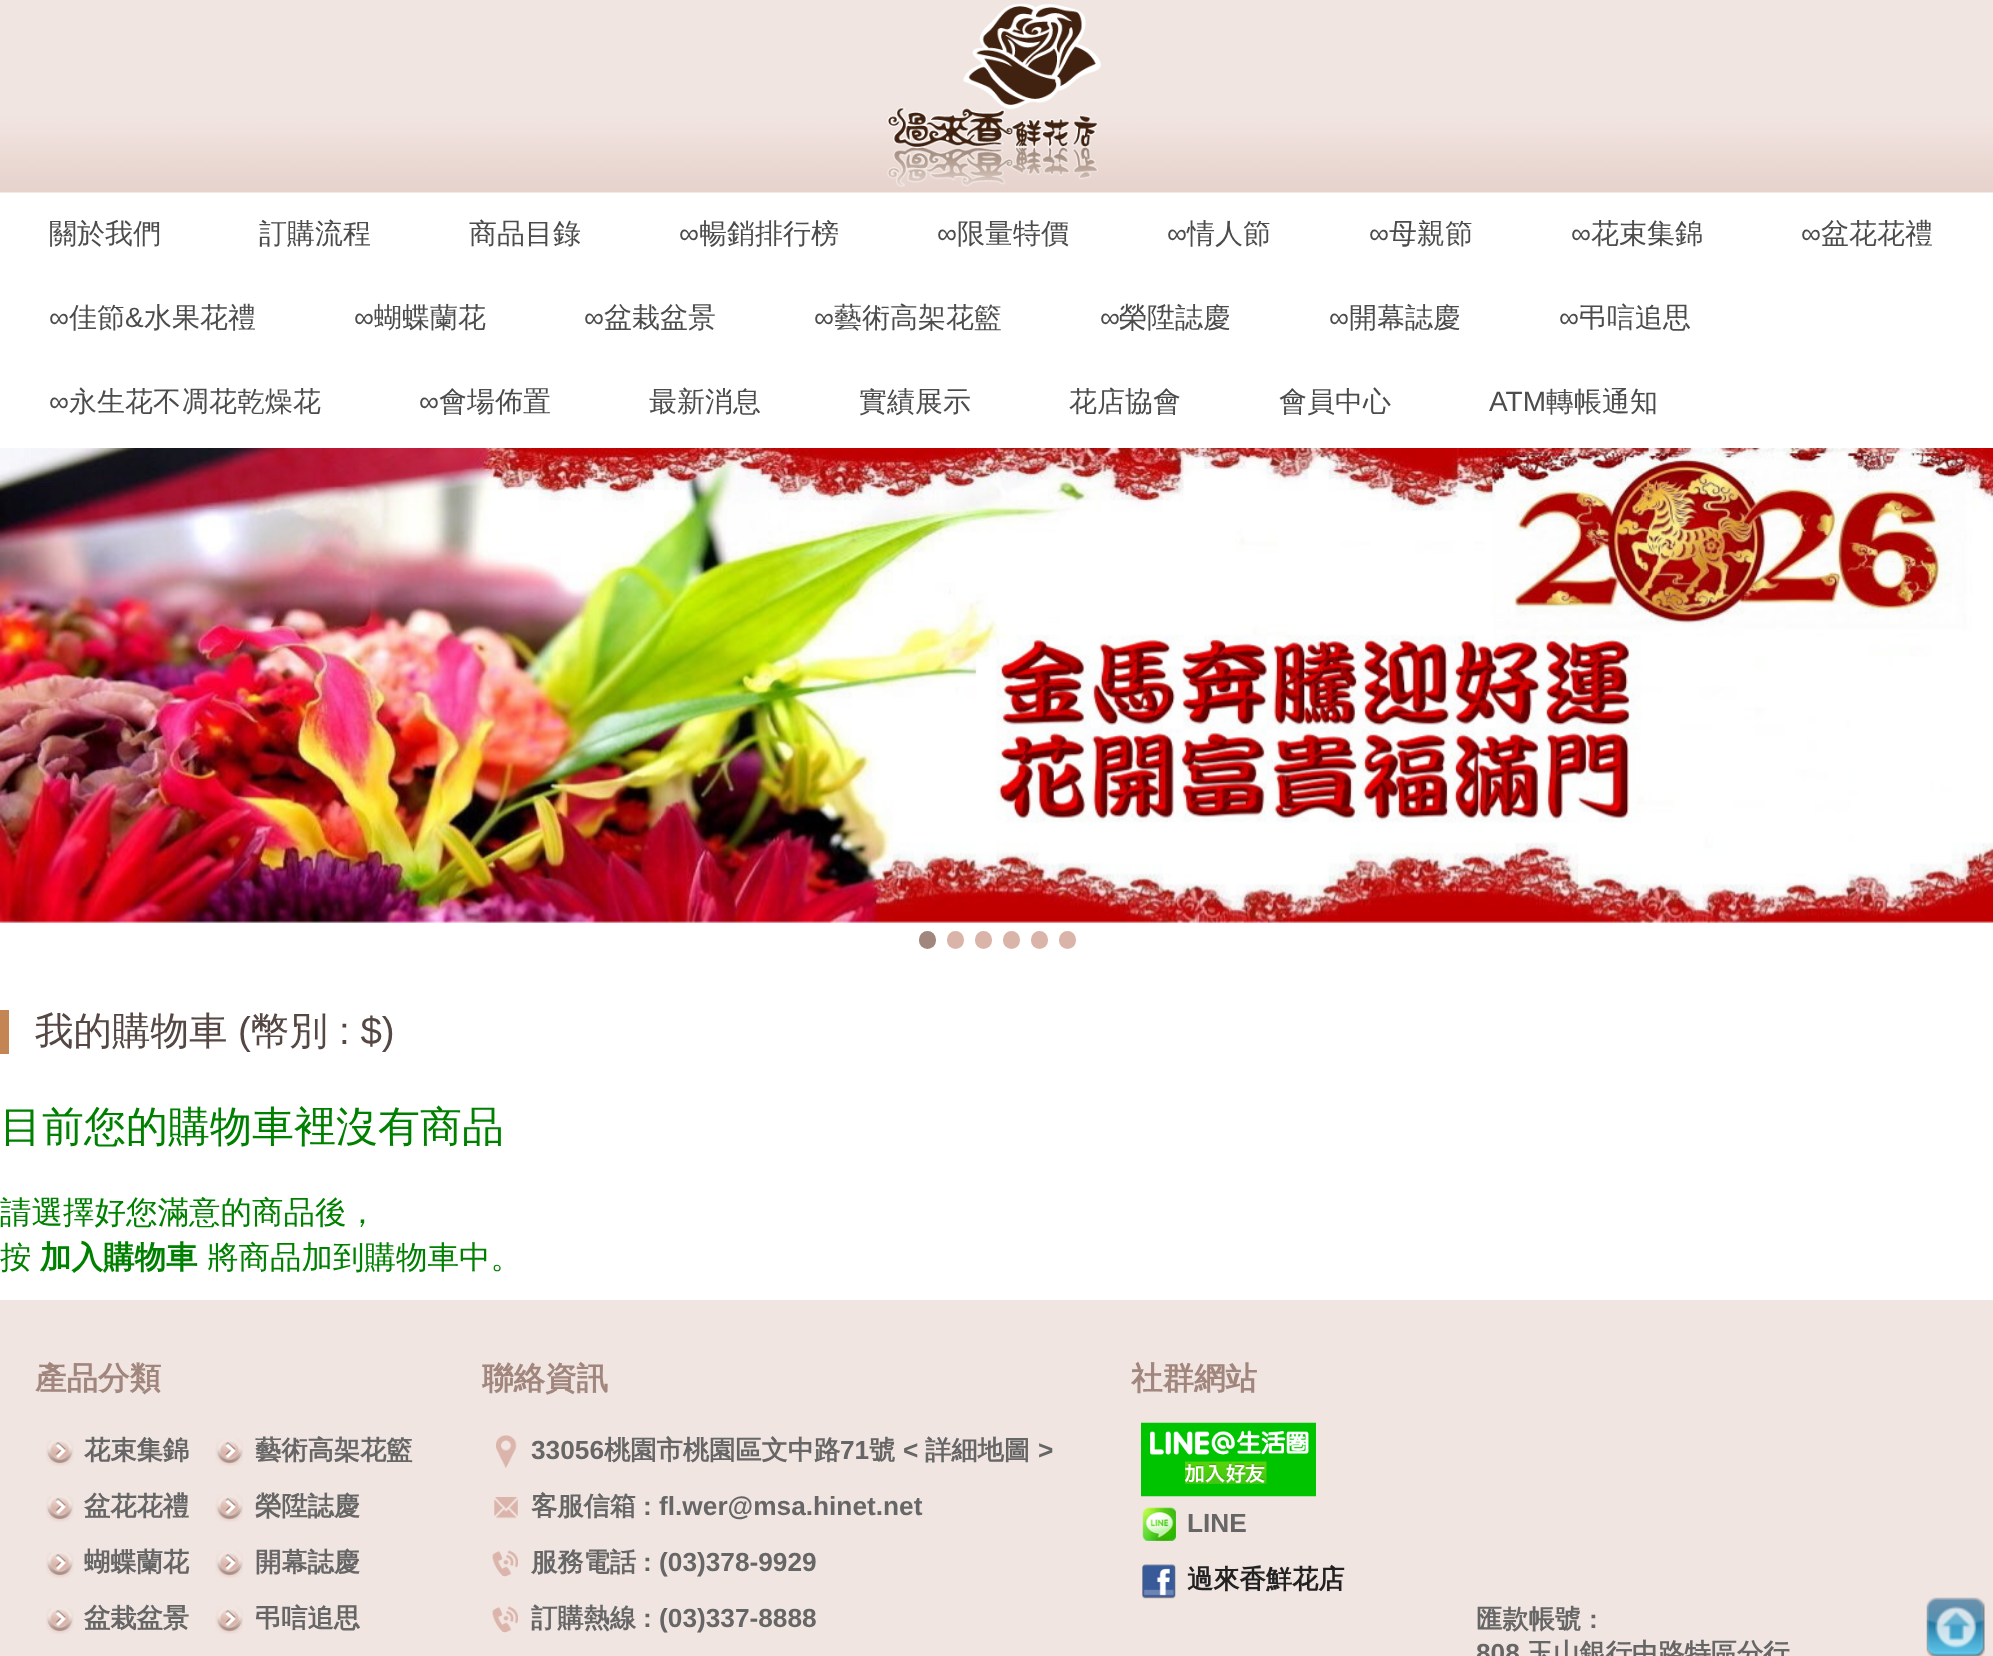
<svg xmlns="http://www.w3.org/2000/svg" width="1993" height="1656">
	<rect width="100%" height="100%" fill="#FFFFFF" />
	<image x="0" y="0" width="1993" height="193" href="assets/img1.png" />
	<image x="887" y="3" width="214" height="184" href="assets/img2.png" />
	<g font-family="WenQuanYi Zen Hei" font-size="28" font-weight="500" fill="#4C4C4C">
		<text x="49" y="243">關於我們</text>
		<text x="259" y="243">訂購流程</text>
		<text x="469" y="243">商品目錄</text>
	</g>
	<text x="679" y="243" font-family="Liberation Sans" font-size="28" fill="#4C4C4C">∞</text>
	<text x="699" y="243" font-family="WenQuanYi Zen Hei" font-size="28" font-weight="500" fill="#4C4C4C">暢銷排行榜</text>
	<text x="937" y="243" font-family="Liberation Sans" font-size="28" fill="#4C4C4C">∞</text>
	<text x="957" y="243" font-family="WenQuanYi Zen Hei" font-size="28" font-weight="500" fill="#4C4C4C">限量特價</text>
	<text x="1167" y="243" font-family="Liberation Sans" font-size="28" fill="#4C4C4C">∞</text>
	<text x="1187" y="243" font-family="WenQuanYi Zen Hei" font-size="28" font-weight="500" fill="#4C4C4C">情人節</text>
	<text x="1369" y="243" font-family="Liberation Sans" font-size="28" fill="#4C4C4C">∞</text>
	<text x="1389" y="243" font-family="WenQuanYi Zen Hei" font-size="28" font-weight="500" fill="#4C4C4C">母親節</text>
	<text x="1571" y="243" font-family="Liberation Sans" font-size="28" fill="#4C4C4C">∞</text>
	<text x="1591" y="243" font-family="WenQuanYi Zen Hei" font-size="28" font-weight="500" fill="#4C4C4C">花束集錦</text>
	<text x="1801" y="243" font-family="Liberation Sans" font-size="28" fill="#4C4C4C">∞</text>
	<text x="1821" y="243" font-family="WenQuanYi Zen Hei" font-size="28" font-weight="500" fill="#4C4C4C">盆花花禮</text>
	<text x="49" y="327" font-family="Liberation Sans" font-size="28" fill="#4C4C4C">∞</text>
	<text x="69" y="327" font-family="WenQuanYi Zen Hei" font-size="28" font-weight="500" fill="#4C4C4C">佳節</text>
	<text x="125" y="327" font-family="Liberation Sans" font-size="28" fill="#4C4C4C">&amp;</text>
	<text x="144" y="327" font-family="WenQuanYi Zen Hei" font-size="28" font-weight="500" fill="#4C4C4C">水果花禮</text>
	<text x="354" y="327" font-family="Liberation Sans" font-size="28" fill="#4C4C4C">∞</text>
	<text x="374" y="327" font-family="WenQuanYi Zen Hei" font-size="28" font-weight="500" fill="#4C4C4C">蝴蝶蘭花</text>
	<text x="584" y="327" font-family="Liberation Sans" font-size="28" fill="#4C4C4C">∞</text>
	<text x="604" y="327" font-family="WenQuanYi Zen Hei" font-size="28" font-weight="500" fill="#4C4C4C">盆栽盆景</text>
	<text x="814" y="327" font-family="Liberation Sans" font-size="28" fill="#4C4C4C">∞</text>
	<text x="834" y="327" font-family="WenQuanYi Zen Hei" font-size="28" font-weight="500" fill="#4C4C4C">藝術高架花籃</text>
	<text x="1100" y="327" font-family="Liberation Sans" font-size="28" fill="#4C4C4C">∞</text>
	<text x="1119" y="327" font-family="WenQuanYi Zen Hei" font-size="28" font-weight="500" fill="#4C4C4C">榮陞誌慶</text>
	<text x="1329" y="327" font-family="Liberation Sans" font-size="28" fill="#4C4C4C">∞</text>
	<text x="1349" y="327" font-family="WenQuanYi Zen Hei" font-size="28" font-weight="500" fill="#4C4C4C">開幕誌慶</text>
	<text x="1559" y="327" font-family="Liberation Sans" font-size="28" fill="#4C4C4C">∞</text>
	<text x="1579" y="327" font-family="WenQuanYi Zen Hei" font-size="28" font-weight="500" fill="#4C4C4C">弔唁追思</text>
	<text x="49" y="411" font-family="Liberation Sans" font-size="28" fill="#4C4C4C">∞</text>
	<text x="69" y="411" font-family="WenQuanYi Zen Hei" font-size="28" font-weight="500" fill="#4C4C4C">永生花不凋花乾燥花</text>
	<text x="419" y="411" font-family="Liberation Sans" font-size="28" fill="#4C4C4C">∞</text>
	<g font-family="WenQuanYi Zen Hei" font-size="28" font-weight="500" fill="#4C4C4C">
		<text x="439" y="411">會場佈置</text>
		<text x="649" y="411">最新消息</text>
		<text x="859" y="411">實績展示</text>
		<text x="1069" y="411">花店協會</text>
		<text x="1279" y="411">會員中心</text>
	</g>
	<text x="1489" y="411" font-family="Liberation Sans" font-size="28" fill="#4C4C4C">ATM</text>
	<text x="1546" y="411" font-family="WenQuanYi Zen Hei" font-size="28" font-weight="500" fill="#4C4C4C">轉帳通知</text>
	<image x="0" y="448" width="1993" height="475" href="assets/img3.png" />
	<rect x="919" y="931" width="17" height="18" rx="8.5" fill="#A1867E" />
	<rect x="947" y="931" width="17" height="18" rx="8.5" fill="#DAB4A9" />
	<rect x="975" y="931" width="17" height="18" rx="8.5" fill="#DAB4A9" />
	<rect x="1003" y="931" width="17" height="18" rx="8.5" fill="#DAB4A9" />
	<rect x="1031" y="931" width="17" height="18" rx="8.5" fill="#DAB4A9" />
	<rect x="1059" y="931" width="17" height="18" rx="8.5" fill="#DAB4A9" />
	<rect x="0" y="1010" width="9" height="44" fill="#C58453" />
	<text x="35" y="1044" font-family="WenQuanYi Zen Hei" font-size="38.5" font-weight="500" fill="#554743">我的購物車</text>
	<text x="238" y="1044" font-family="Liberation Sans" font-size="38.5" fill="#554743">(</text>
	<text x="251" y="1044" font-family="WenQuanYi Zen Hei" font-size="38.5" font-weight="500" fill="#554743">幣別</text>
	<text x="339" y="1044" font-family="Liberation Sans" font-size="38.5" fill="#554743">: $)</text>
	<text x="0" y="1141" font-family="WenQuanYi Zen Hei" font-size="42" font-weight="500" fill="#008000">目前您的購物車裡沒有商品</text>
	<g font-family="WenQuanYi Zen Hei" font-size="31.5" font-weight="500" fill="#008000">
		<text x="0" y="1223">請選擇好您滿意的商品後，</text>
		<text x="0" y="1268">按</text>
	</g>
	<text x="40" y="1268" font-family="WenQuanYi Zen Hei" font-size="31.5" font-weight="700" fill="#008000">加入購物車</text>
	<text x="207" y="1268" font-family="WenQuanYi Zen Hei" font-size="31.5" font-weight="500" fill="#008000">將商品加到購物車中。</text>
	<rect x="0" y="1300" width="1993" height="356" fill="#F1E5E1" />
	<text x="35" y="1389" font-family="WenQuanYi Zen Hei" font-size="31.5" font-weight="700" fill="#A1867E">產品分類</text>
	<image x="46" y="1440" width="28" height="26" href="assets/img4.png" />
	<text x="84" y="1459" font-family="WenQuanYi Zen Hei" font-size="26.25" font-weight="700" fill="#666666">花束集錦</text>
	<image x="46" y="1496" width="28" height="26" href="assets/img4.png" />
	<text x="84" y="1515" font-family="WenQuanYi Zen Hei" font-size="26.25" font-weight="700" fill="#666666">盆花花禮</text>
	<image x="46" y="1552" width="28" height="26" href="assets/img4.png" />
	<text x="84" y="1571" font-family="WenQuanYi Zen Hei" font-size="26.25" font-weight="700" fill="#666666">蝴蝶蘭花</text>
	<image x="46" y="1608" width="28" height="26" href="assets/img4.png" />
	<text x="84" y="1627" font-family="WenQuanYi Zen Hei" font-size="26.25" font-weight="700" fill="#666666">盆栽盆景</text>
	<image x="215" y="1439" width="28" height="27" href="assets/img5.png" />
	<text x="255" y="1459" font-family="WenQuanYi Zen Hei" font-size="26.25" font-weight="700" fill="#666666">藝術高架花籃</text>
	<image x="215" y="1495" width="28" height="27" href="assets/img5.png" />
	<text x="255" y="1515" font-family="WenQuanYi Zen Hei" font-size="26.25" font-weight="700" fill="#666666">榮陞誌慶</text>
	<image x="215" y="1551" width="28" height="27" href="assets/img5.png" />
	<text x="255" y="1571" font-family="WenQuanYi Zen Hei" font-size="26.25" font-weight="700" fill="#666666">開幕誌慶</text>
	<image x="215" y="1607" width="28" height="27" href="assets/img5.png" />
	<text x="255" y="1627" font-family="WenQuanYi Zen Hei" font-size="26.25" font-weight="700" fill="#666666">弔唁追思</text>
	<text x="482" y="1389" font-family="WenQuanYi Zen Hei" font-size="31.5" font-weight="700" fill="#A1867E">聯絡資訊</text>
	<image x="496" y="1435" width="21" height="33" href="assets/img6.png" />
	<text x="531" y="1459" font-family="Liberation Sans" font-size="26.25" font-weight="700" fill="#666666">33056</text>
	<text x="604" y="1459" font-family="WenQuanYi Zen Hei" font-size="26.25" font-weight="700" fill="#666666">桃園市桃園區文中路</text>
	<text x="840" y="1459" font-family="Liberation Sans" font-size="26.25" font-weight="700" fill="#666666">71</text>
	<text x="869" y="1459" font-family="WenQuanYi Zen Hei" font-size="26.25" font-weight="700" fill="#666666">號</text>
	<text x="903" y="1459" font-family="Liberation Sans" font-size="26.25" font-weight="700" fill="#666666">&lt;</text>
	<text x="925" y="1459" font-family="WenQuanYi Zen Hei" font-size="26.25" font-weight="700" fill="#666666">詳細地圖</text>
	<text x="1038" y="1459" font-family="Liberation Sans" font-size="26.25" font-weight="700" fill="#666666">&gt;</text>
	<image x="494" y="1497" width="24" height="22" href="assets/img7.png" />
	<text x="531" y="1515" font-family="WenQuanYi Zen Hei" font-size="26.25" font-weight="700" fill="#666666">客服信箱</text>
	<text x="643" y="1515" font-family="Liberation Sans" font-size="26.25" font-weight="700" fill="#666666">: fl.wer@msa.hinet.net</text>
	<image x="492" y="1550" width="26" height="27" href="assets/img8.png" />
	<text x="531" y="1571" font-family="WenQuanYi Zen Hei" font-size="26.25" font-weight="700" fill="#666666">服務電話</text>
	<text x="643" y="1571" font-family="Liberation Sans" font-size="26.25" font-weight="700" fill="#666666">: (03)378-9929</text>
	<image x="492" y="1606" width="26" height="27" href="assets/img8.png" />
	<text x="531" y="1627" font-family="WenQuanYi Zen Hei" font-size="26.25" font-weight="700" fill="#666666">訂購熱線</text>
	<text x="643" y="1627" font-family="Liberation Sans" font-size="26.25" font-weight="700" fill="#666666">: (03)337-8888</text>
	<text x="1131" y="1389" font-family="WenQuanYi Zen Hei" font-size="31.5" font-weight="700" fill="#A1867E">社群網站</text>
	<image x="1141" y="1422" width="175" height="75" href="assets/img9.png" />
	<image x="1142" y="1507" width="34" height="34" href="assets/img10.png" />
	<text x="1187" y="1532" font-family="Liberation Sans" font-size="26.25" font-weight="700" fill="#666666">LINE</text>
	<image x="1142" y="1564" width="34" height="35" href="assets/img11.png" />
	<text x="1187" y="1588" font-family="WenQuanYi Zen Hei" font-size="26.25" font-weight="700" fill="#222222">過來香鮮花店</text>
	<text x="1476" y="1628" font-family="WenQuanYi Zen Hei" font-size="26.25" font-weight="700" fill="#666666">匯款帳號</text>
	<g font-family="Liberation Sans" font-size="26.25" font-weight="700" fill="#666666">
		<text x="1589" y="1628">:</text>
		<text x="1476" y="1662">808</text>
	</g>
	<text x="1527" y="1662" font-family="WenQuanYi Zen Hei" font-size="26.25" font-weight="700" fill="#666666">玉山銀行中路特區分行</text>
	<image x="1926" y="1597" width="59" height="59" href="assets/img12.png" />
</svg>
